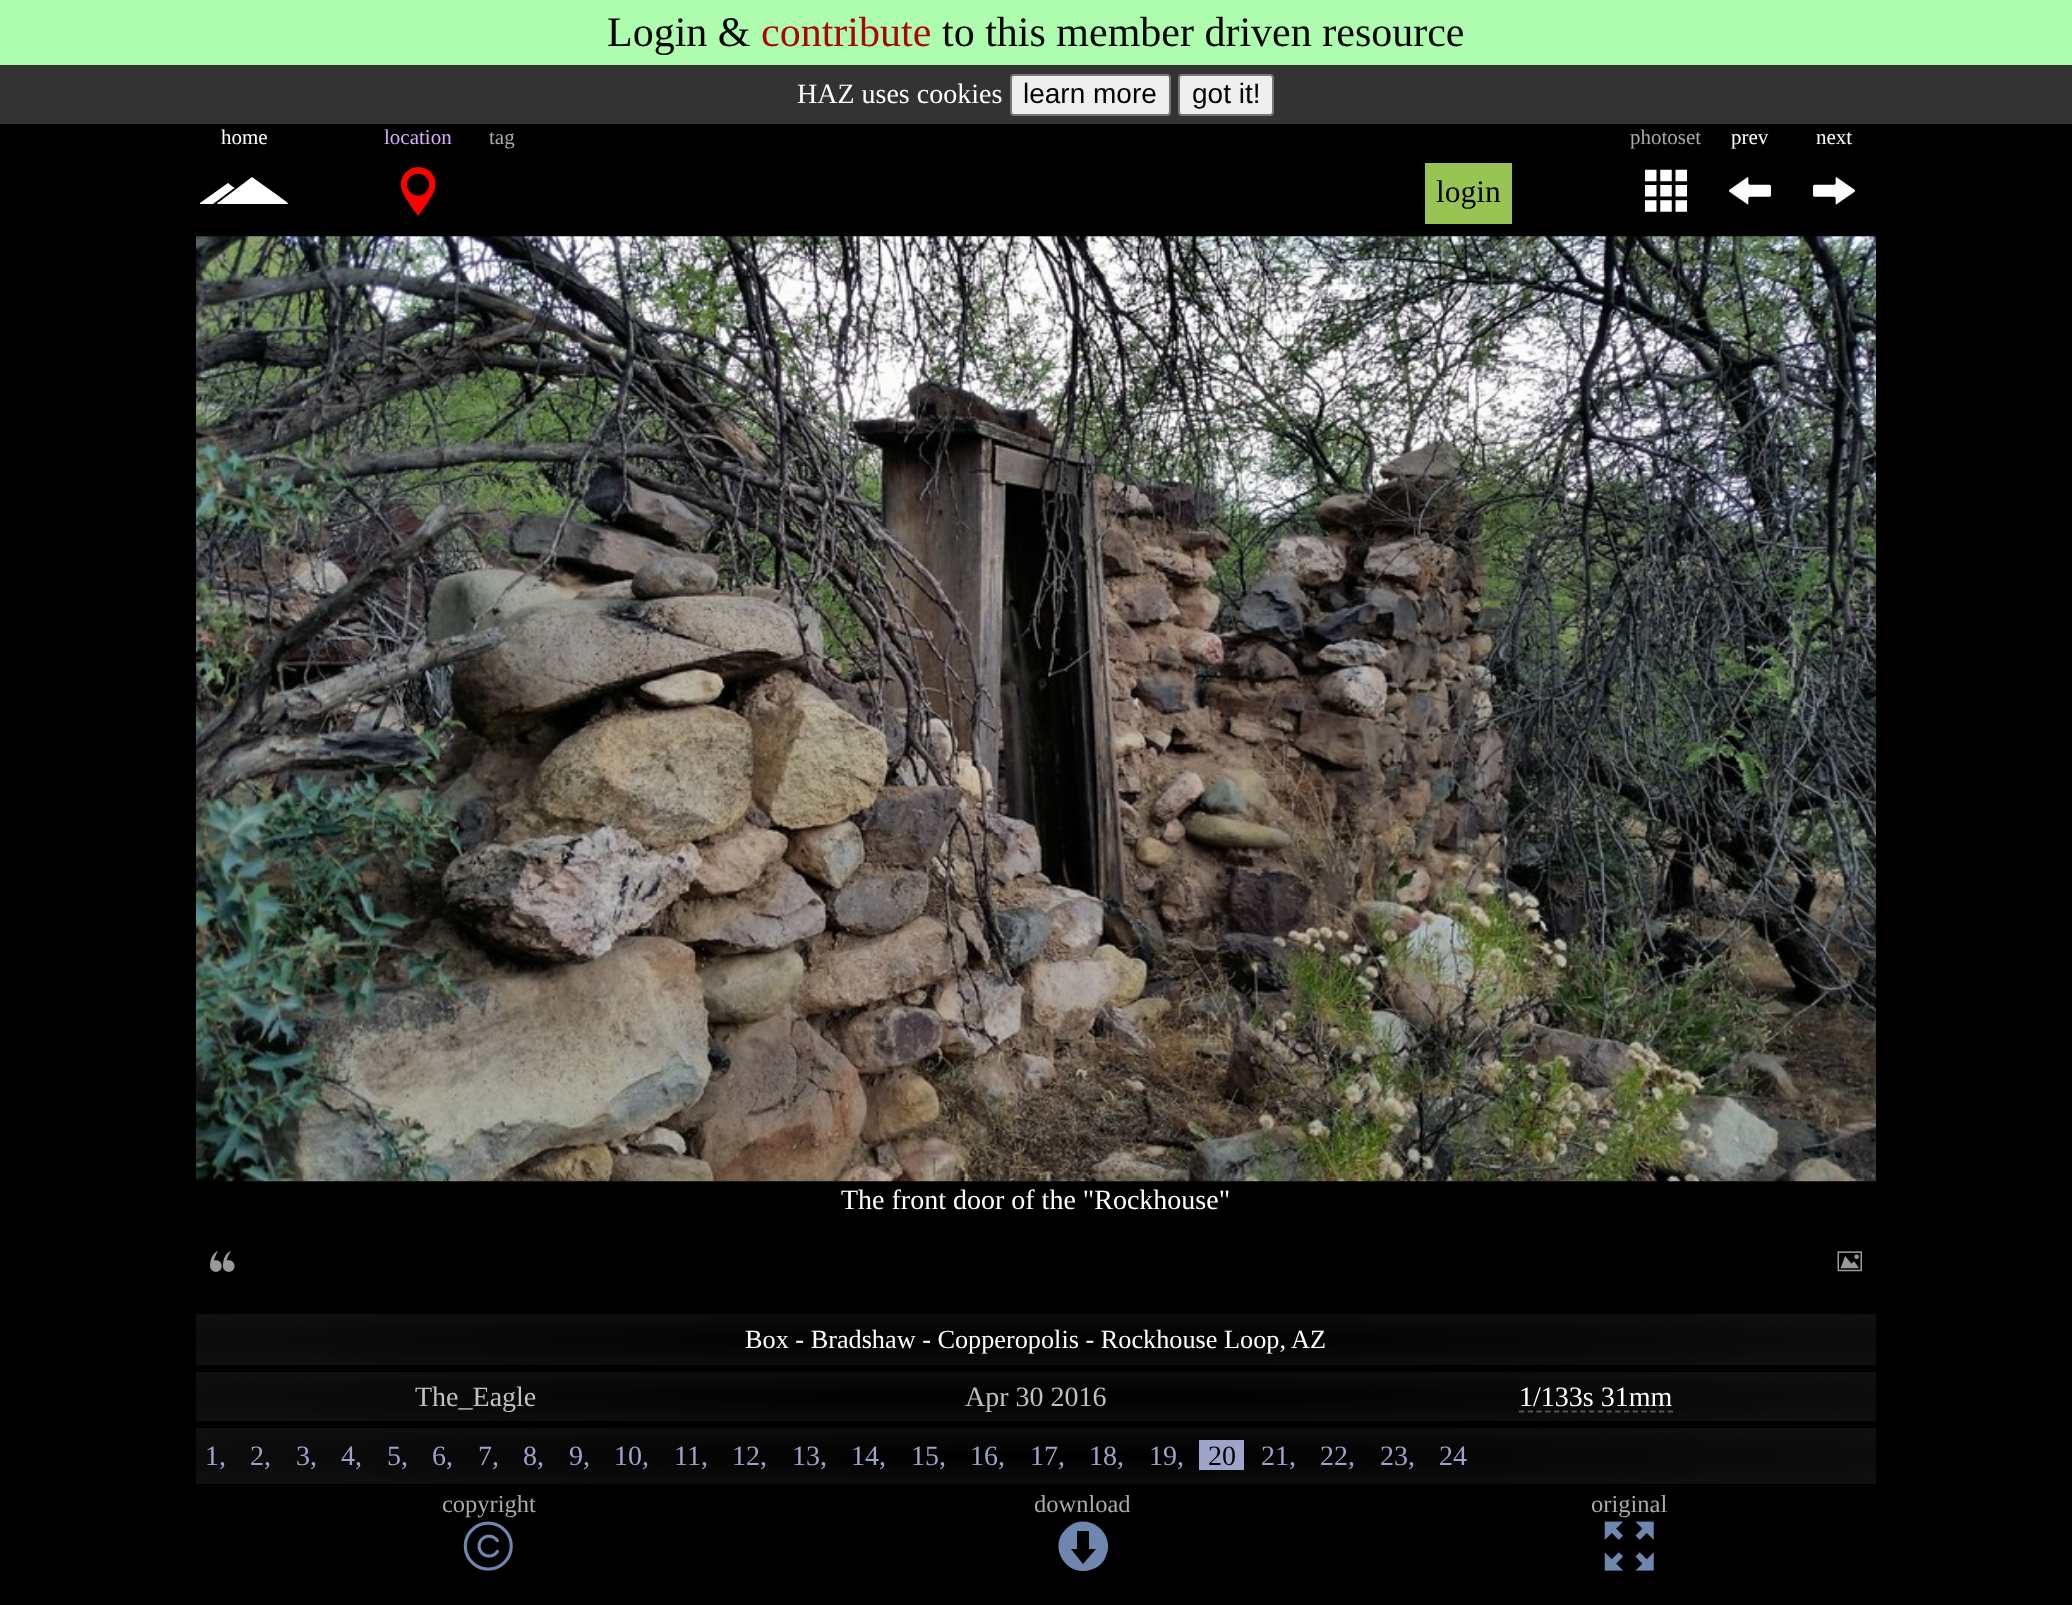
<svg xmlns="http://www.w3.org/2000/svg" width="2072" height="1605">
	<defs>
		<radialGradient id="g1" gradientUnits="userSpaceOnUse" cx="0" cy="0" r="1" gradientTransform="matrix(1188 0 0 36 1036 1340)"><stop offset="0" stop-color="#000000" /><stop offset="1" stop-color="#111111" /></radialGradient>
		<radialGradient id="g2" gradientUnits="userSpaceOnUse" cx="0" cy="0" r="1" gradientTransform="matrix(1188 0 0 35 1036 1397)"><stop offset="0" stop-color="#000000" /><stop offset="1" stop-color="#111111" /></radialGradient>
		<radialGradient id="g3" gradientUnits="userSpaceOnUse" cx="0" cy="0" r="1" gradientTransform="matrix(1188 0 0 40 1036 1456)"><stop offset="0" stop-color="#000000" /><stop offset="1" stop-color="#111111" /></radialGradient>
	</defs>
	<rect width="100%" height="100%" fill="#000000" />
	<rect x="0" y="0" width="2072" height="65" fill="#AEFDAE" />
	<text x="607" y="46" font-family="Liberation Serif" font-size="42" fill="#000000">Login &amp;</text>
	<text x="761" y="46" font-family="Liberation Serif" font-size="42" fill="#AC0505">contribute</text>
	<text x="942" y="46" font-family="Liberation Serif" font-size="42" fill="#000000">to this member driven resource</text>
	<rect x="0" y="65" width="2072" height="59" fill="#333333" />
	<text x="797" y="103" font-family="Liberation Serif" font-size="28" fill="#FFFFFF">HAZ uses cookies</text>
	<rect x="1011" y="75" width="159" height="40" rx="3" fill="#EFEFEF" stroke="#767676" stroke-width="2" />
	<text x="1023" y="103" font-family="Liberation Sans" font-size="28" fill="#000000">learn more</text>
	<rect x="1179" y="75" width="94" height="40" rx="3" fill="#EFEFEF" stroke="#767676" stroke-width="2" />
	<text x="1192" y="103" font-family="Liberation Sans" font-size="28" fill="#000000">got it!</text>
	<text x="221" y="144" font-family="Liberation Serif" font-size="21" fill="#FFFFFF">home</text>
	<text x="384" y="144" font-family="Liberation Serif" font-size="21" fill="#D8ADFF">location</text>
	<g font-family="Liberation Serif" font-size="21" fill="#AAAAAA">
		<text x="489" y="144">tag</text>
		<text x="1630" y="144">photoset</text>
	</g>
	<g font-family="Liberation Serif" font-size="21" fill="#FFFFFF">
		<text x="1731" y="144">prev</text>
		<text x="1816" y="144">next</text>
	</g>
	<path d="M200 204V203L228 183L233 187C235 188 235 188 233 189L213 204ZM218 204C216 204 218 202 219 202L252 177L280 197C282 199 289 203 288 204Z" fill="#FFFFFF" />
	<image x="400" y="167" width="36" height="49" href="assets/img1.png" />
	<rect x="1425" y="163" width="87" height="61" fill="#98C454" />
	<text x="1436" y="202" font-family="Liberation Serif" font-size="31.5" fill="#000000">login</text>
	<image x="1645" y="169" width="42" height="43" href="assets/img2.png" />
	<image x="1729" y="177" width="42" height="28" href="assets/img3.png" />
	<image x="1813" y="177" width="42" height="28" href="assets/img4.png" />
	<image x="196" y="236" width="1680" height="946" href="assets/img5.png" />
	<text x="841" y="1209" font-family="Liberation Serif" font-size="28" fill="#FFFFFF">The front door of the "Rockhouse"</text>
	<image x="210" y="1250" width="25" height="22" href="assets/img6.png" />
	<image x="1837" y="1251" width="25" height="21" href="assets/img7.png" />
	<rect x="196" y="1314" width="1680" height="51" fill="url(#g1)" />
	<text x="745" y="1348" font-family="Liberation Serif" font-size="26.25" fill="#FFFFFF">Box - Bradshaw - Copperopolis - Rockhouse Loop, AZ</text>
	<rect x="196" y="1372" width="1680" height="49" fill="url(#g2)" />
	<g font-family="Liberation Serif" font-size="28" fill="#C0C0C0">
		<text x="415" y="1406">The_Eagle</text>
		<text x="965" y="1406">Apr 30 2016</text>
	</g>
	<text x="1519" y="1406" font-family="Liberation Serif" font-size="28" fill="#FFFFFF">1/133s 31mm</text>
	<path d="M1519 1411.5H1673" fill="none" stroke="#555555" stroke-width="1.8" stroke-dasharray="5.25 3.5" />
	<rect x="196" y="1428" width="1680" height="56" fill="url(#g3)" />
	<g font-family="Liberation Serif" font-size="28" fill="#9DA4CA">
		<text x="205" y="1465">1,</text>
		<text x="250" y="1465">2,</text>
		<text x="296" y="1465">3,</text>
		<text x="341" y="1465">4,</text>
		<text x="387" y="1465">5,</text>
		<text x="432" y="1465">6,</text>
		<text x="478" y="1465">7,</text>
		<text x="523" y="1465">8,</text>
		<text x="569" y="1465">9,</text>
		<text x="614" y="1465">10,</text>
		<text x="674" y="1465">11,</text>
		<text x="732" y="1465">12,</text>
		<text x="792" y="1465">13,</text>
		<text x="851" y="1465">14,</text>
		<text x="911" y="1465">15,</text>
		<text x="970" y="1465">16,</text>
		<text x="1030" y="1465">17,</text>
		<text x="1089" y="1465">18,</text>
		<text x="1149" y="1465">19,</text>
	</g>
	<rect x="1199" y="1440" width="45" height="30" fill="#9DA4CA" />
	<text x="1208" y="1465" font-family="Liberation Serif" font-size="28" fill="#000000">20</text>
	<g font-family="Liberation Serif" font-size="28" fill="#9DA4CA">
		<text x="1261" y="1465">21,</text>
		<text x="1320" y="1465">22,</text>
		<text x="1380" y="1465">23,</text>
		<text x="1439" y="1465">24</text>
	</g>
	<g font-family="Liberation Serif" font-size="24.5" fill="#AAAAAA">
		<text x="442" y="1512">copyright</text>
		<text x="1034" y="1512">download</text>
		<text x="1591" y="1512">original</text>
	</g>
	<image x="463" y="1521" width="50" height="50" href="assets/img8.png" />
	<path d="M1066 1529C1082 1512 1110 1526 1108 1549C1107 1554 1105 1560 1101 1564C1097 1568 1091 1570 1086 1571C1063 1573 1049 1545 1066 1529ZM1083 1564L1096 1549H1089V1531H1077V1549H1071Z" fill="#6F86AE" />
	<image x="1604" y="1521" width="50" height="50" href="assets/img9.png" />
</svg>
